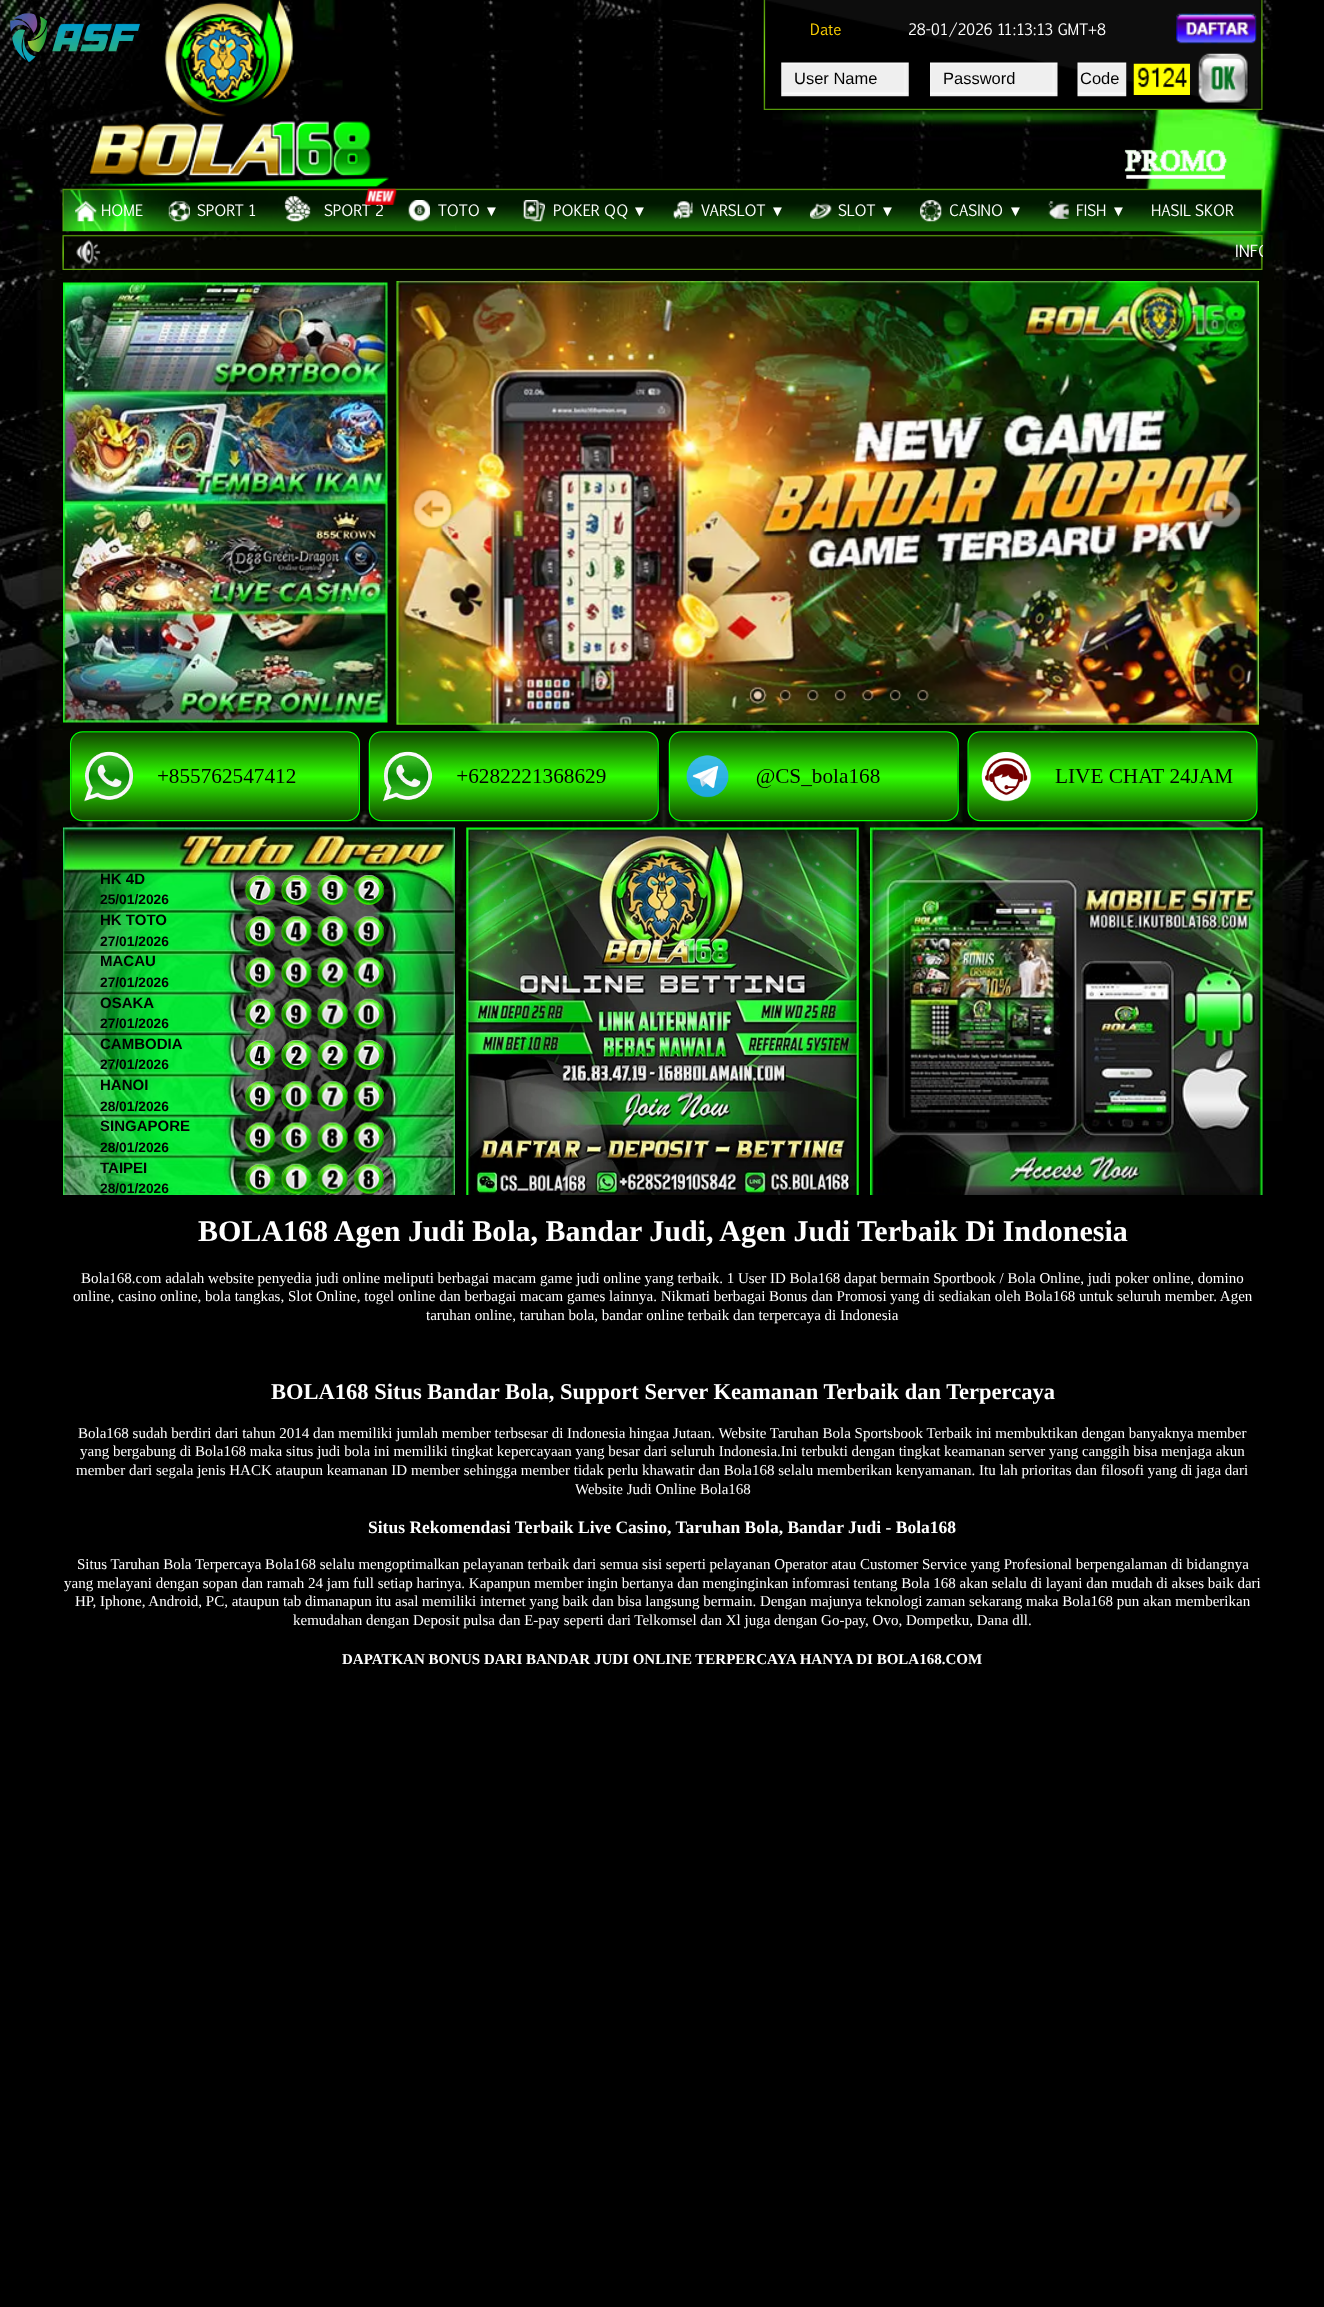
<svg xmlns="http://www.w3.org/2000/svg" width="1324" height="2307">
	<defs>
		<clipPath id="clip1"><rect x="106" y="240" width="1157" height="23" /></clipPath>
	</defs>
	<rect width="100%" height="100%" fill="#000000" />
	<image x="0" y="0" width="1324" height="1121" href="assets/img2.png" />
	<image x="62" y="188" width="1201" height="44" href="assets/img12.png" />
	<image x="71" y="0" width="318" height="189" href="assets/img3.png" />
	<image x="10" y="13" width="130" height="49" href="assets/img1.png" />
	<image x="763" y="0" width="500" height="110" href="assets/img4.png" />
	<text x="810" y="35" font-family="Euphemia" font-size="15" fill="#FDD102">Date</text>
	<text x="908" y="35" font-family="Euphemia" font-size="15" fill="#FFFFFF">28-01/2026 11:13:13 GMT+8</text>
	<image x="1176" y="13" width="81" height="31" href="assets/img5.png" />
	<image x="781" y="62" width="128" height="35" href="assets/img6.png" />
	<text x="794" y="84" font-family="Liberation Sans" font-size="16.5" fill="#000000">User Name</text>
	<image x="930" y="62" width="128" height="35" href="assets/img7.png" />
	<text x="943" y="84" font-family="Liberation Sans" font-size="16.5" fill="#000000">Password</text>
	<image x="1077" y="62" width="50" height="35" href="assets/img8.png" />
	<text x="1080" y="84" font-family="Liberation Sans" font-size="16.5" fill="#000000">Code</text>
	<image x="1133" y="63" width="57" height="32" href="assets/img9.png" />
	<image x="1198" y="53" width="51" height="51" href="assets/img10.png" />
	<image x="1124" y="149" width="103" height="30" href="assets/img11.png" />
	<image x="75" y="201" width="22" height="21" href="assets/img13.png" />
	<text x="101" y="216" font-family="Euphemia" font-size="15" fill="#FFFFFF">HOME</text>
	<image x="168" y="201" width="22" height="21" href="assets/img14.png" />
	<text x="197" y="216" font-family="Euphemia" font-size="15" fill="#FFFFFF">SPORT 1</text>
	<image x="284" y="196" width="27" height="26" href="assets/img15.png" />
	<text x="324" y="216" font-family="Euphemia" font-size="15" fill="#FFFFFF">SPORT 2</text>
	<image x="365" y="188" width="32" height="17" href="assets/img16.png" />
	<image x="408" y="200" width="22" height="22" href="assets/img17.png" />
	<text x="438" y="216" font-family="Euphemia" font-size="15" fill="#FFFFFF">TOTO</text>
	<text x="484" y="216" font-family="Liberation Serif" font-size="15" fill="#FFFFFF">▼</text>
	<image x="523" y="200" width="22" height="22" href="assets/img18.png" />
	<text x="553" y="216" font-family="Euphemia" font-size="15" fill="#FFFFFF">POKER QQ</text>
	<text x="632" y="216" font-family="Liberation Serif" font-size="15" fill="#FFFFFF">▼</text>
	<image x="673" y="201" width="20" height="18" href="assets/img19.png" />
	<text x="701" y="216" font-family="Euphemia" font-size="15" fill="#FFFFFF">VARSLOT</text>
	<text x="770" y="216" font-family="Liberation Serif" font-size="15" fill="#FFFFFF">▼</text>
	<image x="810" y="203" width="22" height="16" href="assets/img20.png" />
	<text x="838" y="216" font-family="Euphemia" font-size="15" fill="#FFFFFF">SLOT</text>
	<text x="880" y="216" font-family="Liberation Serif" font-size="15" fill="#FFFFFF">▼</text>
	<image x="920" y="200" width="22" height="22" href="assets/img21.png" />
	<text x="949" y="216" font-family="Euphemia" font-size="15" fill="#FFFFFF">CASINO</text>
	<text x="1008" y="216" font-family="Liberation Serif" font-size="15" fill="#FFFFFF">▼</text>
	<image x="1048" y="201" width="21" height="18" href="assets/img22.png" />
	<text x="1076" y="216" font-family="Euphemia" font-size="15" fill="#FFFFFF">FISH</text>
	<text x="1111" y="216" font-family="Liberation Serif" font-size="15" fill="#FFFFFF">▼</text>
	<text x="1151" y="216" font-family="Euphemia" font-size="15" fill="#FFFFFF">HASIL SKOR</text>
	<image x="62" y="231" width="1201" height="39" href="assets/img23.png" />
	<g clip-path="url(#clip1)">
		<text x="1235" y="257" font-family="Euphemia" font-size="16" fill="#FFFFFF">INFO</text>
	</g>
	<image x="63" y="281" width="1200" height="914" href="assets/img24.png" />
	<text x="100" y="884" font-family="Liberation Sans" font-size="15" font-weight="700" fill="#000000">HK 4D</text>
	<image x="244" y="875" width="32" height="30" href="assets/img25.png" />
	<image x="281" y="875" width="31" height="30" href="assets/img26.png" />
	<image x="317" y="875" width="31" height="30" href="assets/img27.png" />
	<image x="353" y="875" width="31" height="30" href="assets/img28.png" />
	<text x="100" y="904" font-family="Liberation Sans" font-size="13.75" font-weight="700" fill="#000000">25/01/2026</text>
	<text x="100" y="925" font-family="Liberation Sans" font-size="15" font-weight="700" fill="#000000">HK TOTO</text>
	<image x="244" y="916" width="32" height="31" href="assets/img29.png" />
	<image x="281" y="916" width="31" height="31" href="assets/img30.png" />
	<image x="317" y="916" width="31" height="31" href="assets/img31.png" />
	<image x="353" y="916" width="31" height="31" href="assets/img32.png" />
	<text x="100" y="946" font-family="Liberation Sans" font-size="13.75" font-weight="700" fill="#000000">27/01/2026</text>
	<text x="100" y="966" font-family="Liberation Sans" font-size="15" font-weight="700" fill="#000000">MACAU</text>
	<image x="244" y="957" width="32" height="31" href="assets/img33.png" />
	<image x="281" y="957" width="31" height="31" href="assets/img34.png" />
	<image x="317" y="957" width="31" height="31" href="assets/img35.png" />
	<image x="353" y="957" width="31" height="31" href="assets/img36.png" />
	<text x="100" y="987" font-family="Liberation Sans" font-size="13.75" font-weight="700" fill="#000000">27/01/2026</text>
	<text x="100" y="1008" font-family="Liberation Sans" font-size="15" font-weight="700" fill="#000000">OSAKA</text>
	<image x="244" y="998" width="32" height="31" href="assets/img37.png" />
	<image x="281" y="998" width="31" height="31" href="assets/img38.png" />
	<image x="317" y="998" width="31" height="31" href="assets/img39.png" />
	<image x="353" y="998" width="31" height="31" href="assets/img40.png" />
	<text x="100" y="1028" font-family="Liberation Sans" font-size="13.75" font-weight="700" fill="#000000">27/01/2026</text>
	<text x="100" y="1049" font-family="Liberation Sans" font-size="15" font-weight="700" fill="#000000">CAMBODIA</text>
	<image x="244" y="1040" width="32" height="30" href="assets/img41.png" />
	<image x="281" y="1040" width="31" height="30" href="assets/img42.png" />
	<image x="317" y="1040" width="31" height="30" href="assets/img43.png" />
	<image x="353" y="1040" width="31" height="30" href="assets/img44.png" />
	<text x="100" y="1069" font-family="Liberation Sans" font-size="13.75" font-weight="700" fill="#000000">27/01/2026</text>
	<text x="100" y="1090" font-family="Liberation Sans" font-size="15" font-weight="700" fill="#000000">HANOI</text>
	<image x="244" y="1081" width="32" height="31" href="assets/img45.png" />
	<image x="281" y="1081" width="31" height="31" href="assets/img46.png" />
	<image x="317" y="1081" width="31" height="31" href="assets/img47.png" />
	<image x="353" y="1081" width="31" height="31" href="assets/img48.png" />
	<text x="100" y="1111" font-family="Liberation Sans" font-size="13.75" font-weight="700" fill="#000000">28/01/2026</text>
	<text x="100" y="1131" font-family="Liberation Sans" font-size="15" font-weight="700" fill="#000000">SINGAPORE</text>
	<image x="244" y="1122" width="32" height="31" href="assets/img49.png" />
	<image x="281" y="1122" width="31" height="31" href="assets/img50.png" />
	<image x="317" y="1122" width="31" height="31" href="assets/img51.png" />
	<image x="353" y="1122" width="31" height="31" href="assets/img52.png" />
	<text x="100" y="1152" font-family="Liberation Sans" font-size="13.75" font-weight="700" fill="#000000">28/01/2026</text>
	<text x="100" y="1173" font-family="Liberation Sans" font-size="15" font-weight="700" fill="#000000">TAIPEI</text>
	<image x="244" y="1163" width="32" height="31" href="assets/img53.png" />
	<image x="281" y="1163" width="31" height="31" href="assets/img54.png" />
	<image x="317" y="1163" width="31" height="31" href="assets/img55.png" />
	<image x="353" y="1163" width="31" height="31" href="assets/img56.png" />
	<text x="100" y="1193" font-family="Liberation Sans" font-size="13.75" font-weight="700" fill="#000000">28/01/2026</text>
	<text x="198" y="1241" font-family="Liberation Serif" font-size="30" font-weight="700" fill="#FFFFFF">BOLA168 Agen Judi Bola, Bandar Judi, Agen Judi Terbaik Di Indonesia</text>
	<g font-family="Liberation Serif" font-size="15" fill="#FFFFFF">
		<text x="81" y="1283">Bola168.com adalah website penyedia judi online meliputi berbagai macam game judi online yang terbaik. 1 User ID Bola168 dapat bermain Sportbook / Bola Online, judi poker online, domino</text>
		<text x="73" y="1301">online, casino online, bola tangkas, Slot Online, togel online dan berbagai macam games lainnya. Nikmati berbagai Bonus dan Promosi yang di sediakan oleh Bola168 untuk seluruh member. Agen</text>
		<text x="426" y="1320">taruhan online, taruhan bola, bandar online terbaik dan terpercaya di Indonesia</text>
	</g>
	<text x="271" y="1399" font-family="Liberation Serif" font-size="22.5" font-weight="700" fill="#FFFFFF">BOLA168 Situs Bandar Bola, Support Server Keamanan Terbaik dan Terpercaya</text>
	<g font-family="Liberation Serif" font-size="15" fill="#FFFFFF">
		<text x="78" y="1438">Bola168 sudah berdiri dari tahun 2014 dan memiliki jumlah member terbsesar di Indonesia hingaa Jutaan. Website Taruhan Bola Sportsbook Terbaik ini membuktikan dengan banyaknya member</text>
		<text x="80" y="1456">yang bergabung di Bola168 maka situs judi bola ini memiliki tingkat kepercayaan yang besar dari seluruh Indonesia.Ini terbukti dengan tingkat keamanan server yang canggih bisa menjaga akun</text>
		<text x="76" y="1475">member dari segala jenis HACK ataupun keamanan ID member sehingga member tidak perlu khawatir dan Bola168 selalu memberikan kenyamanan. Itu lah prioritas dan filosofi yang di jaga dari</text>
		<text x="575" y="1494">Website Judi Online Bola168</text>
	</g>
	<text x="368" y="1533" font-family="Liberation Serif" font-size="17.55" font-weight="700" fill="#FFFFFF">Situs Rekomendasi Terbaik Live Casino, Taruhan Bola, Bandar Judi - Bola168</text>
	<g font-family="Liberation Serif" font-size="15" fill="#FFFFFF">
		<text x="77" y="1569">Situs Taruhan Bola Terpercaya Bola168 selalu mengoptimalkan pelayanan terbaik dari semua sisi seperti pelayanan Operator atau Customer Service yang Profesional berpengalaman di bidangnya</text>
		<text x="64" y="1588">yang melayani dengan sopan dan ramah 24 jam full setiap harinya. Kapanpun member ingin bertanya dan menginginkan infomrasi tentang Bola 168 akan selalu di layani dan mudah di akses baik dari</text>
		<text x="75" y="1606">HP, Iphone, Android, PC, ataupun tab dimanapun itu asal memiliki internet yang baik dan bisa langsung bermain. Dengan majunya teknologi zaman sekarang maka Bola168 pun akan memberikan</text>
		<text x="293" y="1625">kemudahan dengan Deposit pulsa dan E-pay seperti dari Telkomsel dan Xl juga dengan Go-pay, Ovo, Dompetku, Dana dll.</text>
	</g>
	<text x="342" y="1664" font-family="Liberation Serif" font-size="15" font-weight="700" fill="#FFFFFF">DAPATKAN BONUS DARI BANDAR JUDI ONLINE TERPERCAYA HANYA DI BOLA168.COM</text>
</svg>
